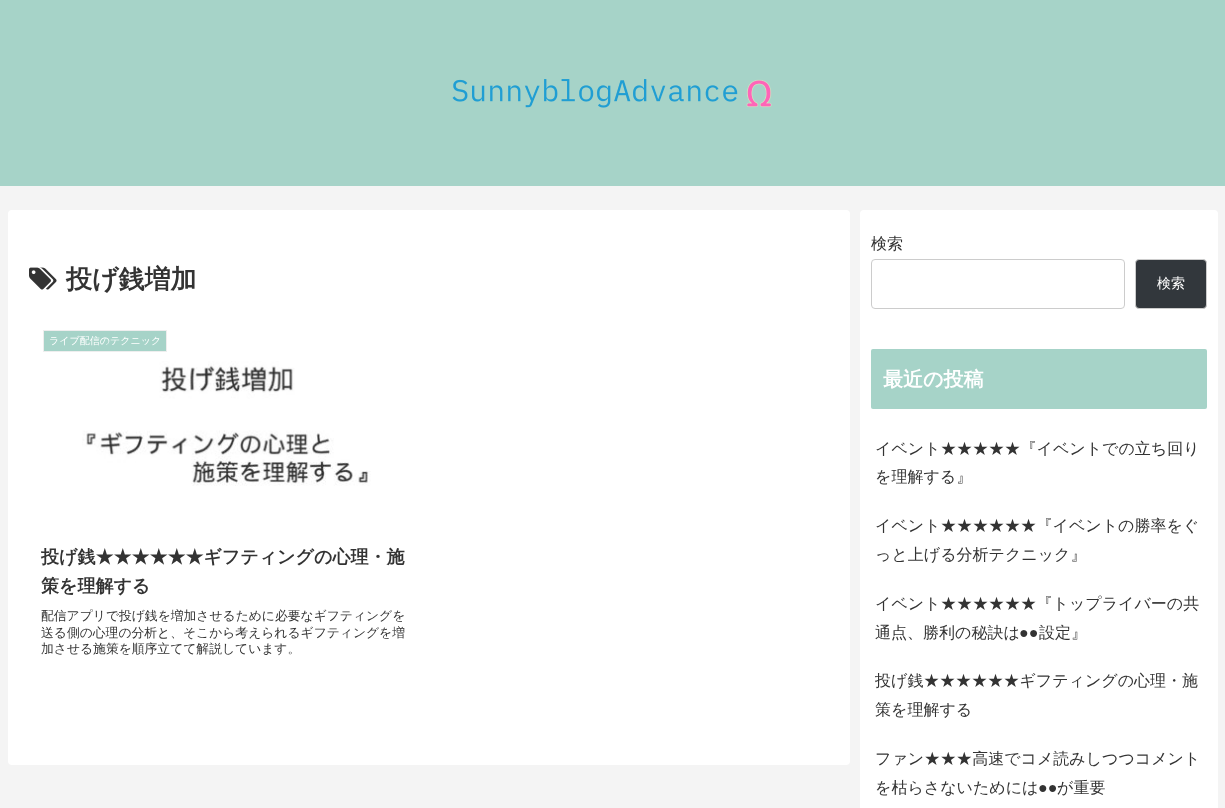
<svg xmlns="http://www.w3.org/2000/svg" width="1225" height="808">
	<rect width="100%" height="100%" fill="#F4F4F4" />
	<rect x="0" y="0" width="1225" height="186" fill="#A6D3C8" />
	<image x="452" y="79" width="320" height="29" href="assets/img1.png" />
	<rect x="8" y="210" width="842" height="555" rx="4" fill="#FFFFFF" />
	<image x="29" y="267" width="28" height="23" href="assets/img2.png" />
	<text x="66" y="288" font-family="WenQuanYi Zen Hei" font-size="26" font-weight="700" fill="#333333">投げ銭増加</text>
	<rect x="43.5" y="330.5" width="123" height="21" fill="#A6D3C8" stroke="#EEEEEE" />
	<text x="49" y="344" font-family="WenQuanYi Zen Hei" font-size="10" font-weight="500" fill="#FFFFFF">ライブ配信のテクニック</text>
	<image x="82" y="361" width="289" height="125" href="assets/img3.png" />
	<g font-family="WenQuanYi Zen Hei" font-size="18" font-weight="700" fill="#333333">
		<text x="41" y="563">投げ銭★★★★★★ギフティングの心理・施</text>
		<text x="41" y="592">策を理解する</text>
	</g>
	<g font-family="WenQuanYi Zen Hei" font-size="12.8" font-weight="500" fill="#333333">
		<text x="41" y="620">配信アプリで投げ銭を増加させるために必要なギフティングを</text>
		<text x="41" y="637">送る側の心理の分析と、そこから考えられるギフティングを増</text>
		<text x="41" y="653">加させる施策を順序立てて解説しています。</text>
	</g>
	<rect x="860" y="210" width="358" height="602" rx="4" fill="#FFFFFF" />
	<text x="871" y="249" font-family="WenQuanYi Zen Hei" font-size="16" font-weight="500" fill="#333333">検索</text>
	<rect x="871.5" y="259.5" width="253" height="49" rx="3.5" fill="none" stroke="#CCCCCC" />
	<rect x="1135.5" y="259.5" width="71" height="49" rx="3.5" fill="#32373C" stroke="#CCCCCC" />
	<text x="1157" y="288" font-family="WenQuanYi Zen Hei" font-size="14" font-weight="500" fill="#FFFFFF">検索</text>
	<rect x="871" y="349" width="336" height="60" rx="2" fill="#A6D3C8" />
	<text x="883" y="386" font-family="WenQuanYi Zen Hei" font-size="20" font-weight="700" fill="#FFFFFF">最近の投稿</text>
	<g font-family="WenQuanYi Zen Hei" font-size="16" font-weight="500" fill="#333333">
		<text x="875" y="454">イベント★★★★★『イベントでの立ち回り</text>
		<text x="875" y="482">を理解する』</text>
		<text x="875" y="531">イベント★★★★★★『イベントの勝率をぐ</text>
		<text x="875" y="560">っと上げる分析テクニック』</text>
		<text x="875" y="609">イベント★★★★★★『トップライバーの共</text>
		<text x="875" y="638">通点、勝利の秘訣は</text>
	</g>
	<text x="1019" y="638" font-family="Liberation Sans" font-size="16" fill="#333333">●●</text>
	<g font-family="WenQuanYi Zen Hei" font-size="16" font-weight="500" fill="#333333">
		<text x="1039" y="638">設定』</text>
		<text x="875" y="686">投げ銭★★★★★★ギフティングの心理・施</text>
		<text x="875" y="715">策を理解する</text>
		<text x="875" y="764">ファン★★★高速でコメ読みしつつコメント</text>
		<text x="875" y="793">を枯らさないためには</text>
	</g>
	<text x="1038" y="793" font-family="Liberation Sans" font-size="16" fill="#333333">●●</text>
	<text x="1057" y="793" font-family="WenQuanYi Zen Hei" font-size="16" font-weight="500" fill="#333333">が重要</text>
</svg>
